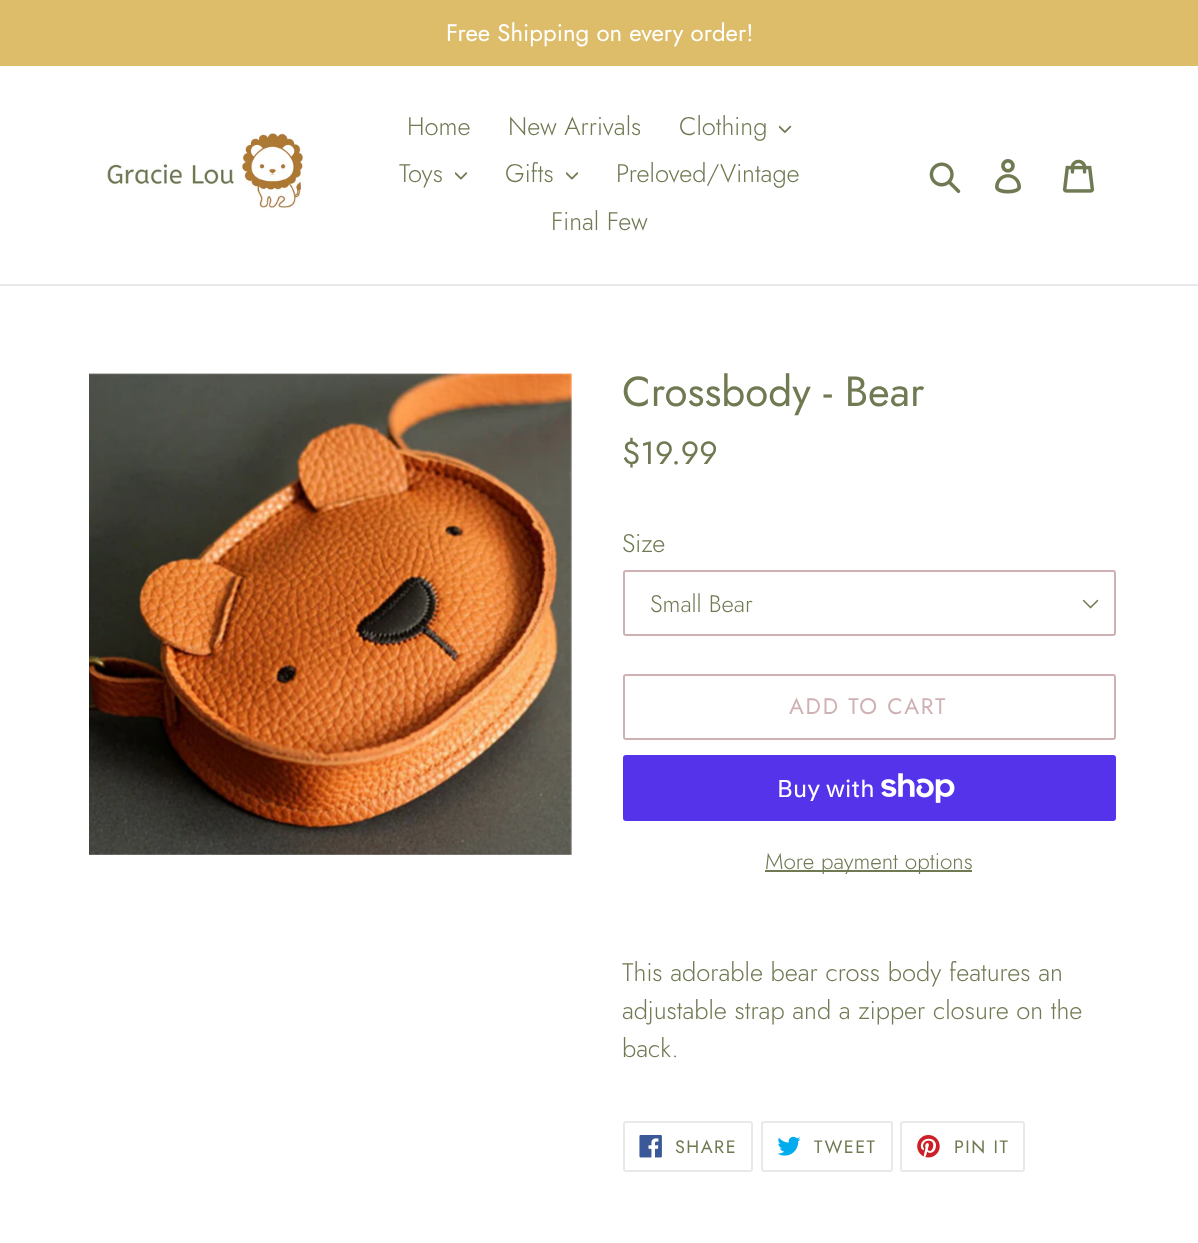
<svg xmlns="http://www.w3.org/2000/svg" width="1198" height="1243">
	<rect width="100%" height="100%" fill="#FFFFFF" />
	<rect x="0" y="0" width="1198" height="66" fill="#DEBD6A" />
	<text x="446" y="41" font-family="Jost" font-size="24" fill="#FFFFFF">Free Shipping on every order!</text>
	<rect x="0" y="284" width="1198" height="2" fill="#E8E9EB" />
	<image x="106" y="133" width="200" height="77" href="assets/img1.png" />
	<g font-family="Jost" font-size="25.5" font-weight="300" fill="#6F7A53">
		<text x="407" y="135">Home</text>
		<text x="508" y="135">New Arrivals</text>
		<text x="679" y="135">Clothing</text>
	</g>
	<image x="779" y="125" width="13" height="8" href="assets/img2.png" />
	<text x="399" y="182" font-family="Jost" font-size="25.5" font-weight="300" fill="#6F7A53">Toys</text>
	<image x="455" y="172" width="13" height="8" href="assets/img3.png" />
	<text x="505" y="182" font-family="Jost" font-size="25.5" font-weight="300" fill="#6F7A53">Gifts</text>
	<image x="566" y="172" width="13" height="8" href="assets/img3.png" />
	<g font-family="Jost" font-size="25.5" font-weight="300" fill="#6F7A53">
		<text x="616" y="182">Preloved/Vintage</text>
		<text x="551" y="230">Final Few</text>
	</g>
	<image x="929" y="162" width="32" height="32" href="assets/img4.png" />
	<image x="995" y="159" width="26" height="35" href="assets/img5.png" />
	<image x="1062" y="159" width="32" height="34" href="assets/img6.png" />
	<image x="89" y="373" width="483" height="482" href="assets/img7.png" />
	<text x="622" y="406" font-family="Jost" font-size="42" fill="#6F7A53">Crossbody - Bear</text>
	<text x="622" y="464" font-family="Jost" font-size="32" fill="#6F7A53">$19.99</text>
	<text x="622" y="552" font-family="Jost" font-size="25.5" font-weight="300" fill="#6F7A53">Size</text>
	<image x="1082" y="599" width="17" height="10" href="assets/img8.png" />
	<rect x="624" y="571" width="491" height="64" rx="2" fill="none" stroke="#CFB1B3" stroke-width="2" />
	<text x="650" y="612" font-family="Jost" font-size="24" font-weight="300" fill="#6F7A53">Small Bear</text>
	<rect x="624" y="675" width="491" height="64" rx="2" fill="none" stroke="#CFB1B3" stroke-width="2" />
	<text x="789" y="714" font-family="Jost" font-size="22.5" letter-spacing="1.75" fill="#CFB1B3">ADD TO CART</text>
	<rect x="623" y="755" width="493" height="66" rx="3" fill="#5433EB" />
	<text x="777" y="797" font-family="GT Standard" font-size="24" fill="#FFFFFF">Buy with</text>
	<image x="881" y="773" width="74" height="30" href="assets/img9.png" />
	<rect x="765" y="870" width="207" height="2" fill="#6F7A53" />
	<text x="765" y="869" font-family="Jost" font-size="22.5" font-weight="300" fill="#6F7A53">More payment options</text>
	<g font-family="Jost" font-size="25.5" font-weight="300" fill="#6F7A53">
		<text x="622" y="981">This adorable bear cross body features an</text>
		<text x="622" y="1019">adjustable strap and a zipper closure on the</text>
		<text x="622" y="1057">back.</text>
	</g>
	<rect x="624" y="1122" width="128" height="49" rx="2" fill="none" stroke="#E8E9EB" stroke-width="2" />
	<image x="639" y="1135" width="23" height="23" href="assets/img10.png" />
	<text x="675" y="1153" font-family="Jost" font-size="18" letter-spacing="1.5" fill="#6F7A53">SHARE</text>
	<rect x="762" y="1122" width="130" height="49" rx="2" fill="none" stroke="#E8E9EB" stroke-width="2" />
	<image x="777" y="1136" width="24" height="20" href="assets/img11.png" />
	<text x="814" y="1153" font-family="Jost" font-size="18" letter-spacing="1.5" fill="#6F7A53">TWEET</text>
	<rect x="901" y="1122" width="123" height="49" rx="2" fill="none" stroke="#E8E9EB" stroke-width="2" />
	<image x="917" y="1135" width="23" height="23" href="assets/img12.png" />
	<text x="954" y="1153" font-family="Jost" font-size="18" letter-spacing="1.5" fill="#6F7A53">PIN IT</text>
</svg>
